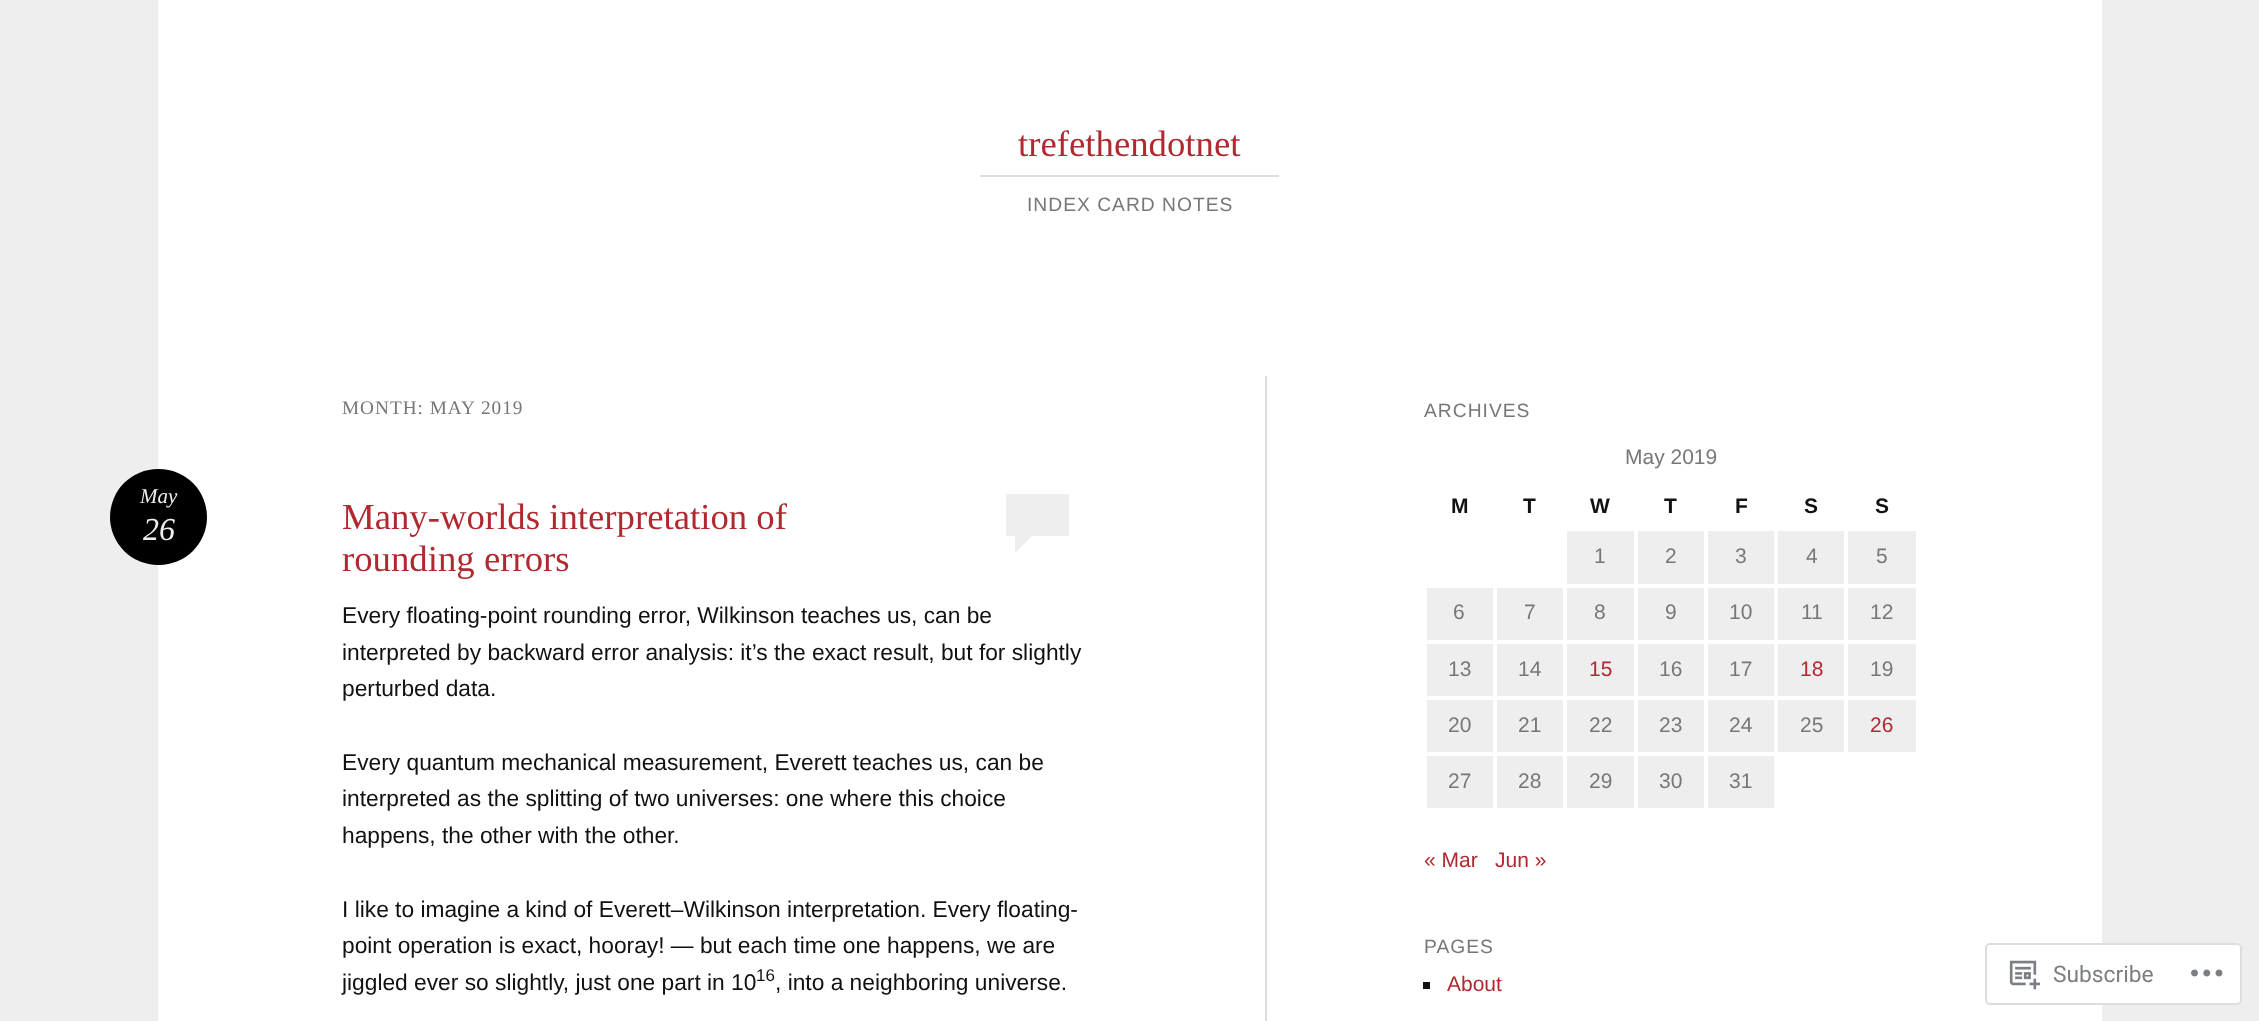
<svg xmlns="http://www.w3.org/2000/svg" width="2259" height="1021">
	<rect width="100%" height="100%" fill="#EEEEEE" />
	<rect x="158" y="0" width="1944" height="1021" fill="#FFFFFF" />
	<rect x="980" y="175" width="299" height="2" fill="#DDDDDD" />
	<text x="1018" y="156" font-family="Liberation Serif" font-size="36.75" fill="#B12930">trefethendotnet</text>
	<text x="1027" y="211" font-family="Liberation Sans" font-size="19.25" letter-spacing="1" fill="#777777">INDEX CARD NOTES</text>
	<text x="342" y="414" font-family="Liberation Serif" font-size="19.25" letter-spacing="1" fill="#777777">MONTH: MAY 2019</text>
	<rect x="110" y="469" width="97" height="96" rx="48" fill="#000000" />
	<text x="140" y="503" font-family="Liberation Serif" font-size="21" font-style="italic" fill="#EEEEEE">May</text>
	<text x="143" y="540" font-family="Liberation Serif" font-size="32" font-style="italic" fill="#EEEEEE">26</text>
	<g font-family="Liberation Serif" font-size="36.75" fill="#B12930">
		<text x="342" y="529">Many-worlds interpretation of</text>
		<text x="342" y="571">rounding errors</text>
	</g>
	<rect x="1006" y="494" width="63" height="42" fill="#EEEEEE" />
	<path d="M1015 553V535.5H1032.5Z" fill="#EEEEEE" />
	<g font-family="Liberation Sans" font-size="22.75" fill="#111111">
		<text x="342" y="623">Every floating-point rounding error, Wilkinson teaches us, can be</text>
		<text x="342" y="660">interpreted by backward error analysis: it’s the exact result, but for slightly</text>
		<text x="342" y="696">perturbed data.</text>
		<text x="342" y="770">Every quantum mechanical measurement, Everett teaches us, can be</text>
		<text x="342" y="806">interpreted as the splitting of two universes: one where this choice</text>
		<text x="342" y="843">happens, the other with the other.</text>
		<text x="342" y="917">I like to imagine a kind of Everett–Wilkinson interpretation. Every floating-</text>
		<text x="342" y="953">point operation is exact, hooray! — but each time one happens, we are</text>
		<text x="342" y="990">jiggled ever so slightly, just one part in 10</text>
	</g>
	<text x="756" y="981" font-family="Liberation Sans" font-size="17" fill="#111111">16</text>
	<text x="775" y="990" font-family="Liberation Sans" font-size="22.75" fill="#111111">, into a neighboring universe.</text>
	<rect x="1265" y="376" width="2" height="645" fill="#DDDDDD" />
	<text x="1424" y="417" font-family="Liberation Sans" font-size="19.25" letter-spacing="1" fill="#777777">ARCHIVES</text>
	<text x="1625" y="464" font-family="Liberation Sans" font-size="21" fill="#777777">May 2019</text>
	<g font-family="Liberation Sans" font-size="21" font-weight="700" fill="#111111">
		<text x="1451" y="513">M</text>
		<text x="1523" y="513">T</text>
		<text x="1590" y="513">W</text>
		<text x="1664" y="513">T</text>
		<text x="1735" y="513">F</text>
		<text x="1804" y="513">S</text>
		<text x="1875" y="513">S</text>
	</g>
	<rect x="1567" y="531" width="67" height="53" fill="#EEEEEE" />
	<text x="1594" y="563" font-family="Liberation Sans" font-size="21" fill="#777777">1</text>
	<rect x="1638" y="531" width="66" height="53" fill="#EEEEEE" />
	<text x="1665" y="563" font-family="Liberation Sans" font-size="21" fill="#777777">2</text>
	<rect x="1708" y="531" width="66" height="53" fill="#EEEEEE" />
	<text x="1735" y="563" font-family="Liberation Sans" font-size="21" fill="#777777">3</text>
	<rect x="1778" y="531" width="66" height="53" fill="#EEEEEE" />
	<text x="1806" y="563" font-family="Liberation Sans" font-size="21" fill="#777777">4</text>
	<rect x="1848" y="531" width="68" height="53" fill="#EEEEEE" />
	<text x="1876" y="563" font-family="Liberation Sans" font-size="21" fill="#777777">5</text>
	<rect x="1427" y="588" width="66" height="52" fill="#EEEEEE" />
	<text x="1453" y="619" font-family="Liberation Sans" font-size="21" fill="#777777">6</text>
	<rect x="1497" y="588" width="66" height="52" fill="#EEEEEE" />
	<text x="1524" y="619" font-family="Liberation Sans" font-size="21" fill="#777777">7</text>
	<rect x="1567" y="588" width="67" height="52" fill="#EEEEEE" />
	<text x="1594" y="619" font-family="Liberation Sans" font-size="21" fill="#777777">8</text>
	<rect x="1638" y="588" width="66" height="52" fill="#EEEEEE" />
	<text x="1665" y="619" font-family="Liberation Sans" font-size="21" fill="#777777">9</text>
	<rect x="1708" y="588" width="66" height="52" fill="#EEEEEE" />
	<text x="1729" y="619" font-family="Liberation Sans" font-size="21" fill="#777777">10</text>
	<rect x="1778" y="588" width="66" height="52" fill="#EEEEEE" />
	<text x="1801" y="619" font-family="Liberation Sans" font-size="21" fill="#777777">11</text>
	<rect x="1848" y="588" width="68" height="52" fill="#EEEEEE" />
	<text x="1870" y="619" font-family="Liberation Sans" font-size="21" fill="#777777">12</text>
	<rect x="1427" y="644" width="66" height="52" fill="#EEEEEE" />
	<text x="1448" y="676" font-family="Liberation Sans" font-size="21" fill="#777777">13</text>
	<rect x="1497" y="644" width="66" height="52" fill="#EEEEEE" />
	<text x="1518" y="676" font-family="Liberation Sans" font-size="21" fill="#777777">14</text>
	<rect x="1567" y="644" width="67" height="52" fill="#EEEEEE" />
	<text x="1589" y="676" font-family="Liberation Sans" font-size="21" fill="#B12930">15</text>
	<rect x="1638" y="644" width="66" height="52" fill="#EEEEEE" />
	<text x="1659" y="676" font-family="Liberation Sans" font-size="21" fill="#777777">16</text>
	<rect x="1708" y="644" width="66" height="52" fill="#EEEEEE" />
	<text x="1729" y="676" font-family="Liberation Sans" font-size="21" fill="#777777">17</text>
	<rect x="1778" y="644" width="66" height="52" fill="#EEEEEE" />
	<text x="1800" y="676" font-family="Liberation Sans" font-size="21" fill="#B12930">18</text>
	<rect x="1848" y="644" width="68" height="52" fill="#EEEEEE" />
	<text x="1870" y="676" font-family="Liberation Sans" font-size="21" fill="#777777">19</text>
	<rect x="1427" y="700" width="66" height="52" fill="#EEEEEE" />
	<text x="1448" y="732" font-family="Liberation Sans" font-size="21" fill="#777777">20</text>
	<rect x="1497" y="700" width="66" height="52" fill="#EEEEEE" />
	<text x="1518" y="732" font-family="Liberation Sans" font-size="21" fill="#777777">21</text>
	<rect x="1567" y="700" width="67" height="52" fill="#EEEEEE" />
	<text x="1589" y="732" font-family="Liberation Sans" font-size="21" fill="#777777">22</text>
	<rect x="1638" y="700" width="66" height="52" fill="#EEEEEE" />
	<text x="1659" y="732" font-family="Liberation Sans" font-size="21" fill="#777777">23</text>
	<rect x="1708" y="700" width="66" height="52" fill="#EEEEEE" />
	<text x="1729" y="732" font-family="Liberation Sans" font-size="21" fill="#777777">24</text>
	<rect x="1778" y="700" width="66" height="52" fill="#EEEEEE" />
	<text x="1800" y="732" font-family="Liberation Sans" font-size="21" fill="#777777">25</text>
	<rect x="1848" y="700" width="68" height="52" fill="#EEEEEE" />
	<text x="1870" y="732" font-family="Liberation Sans" font-size="21" fill="#B12930">26</text>
	<rect x="1427" y="756" width="66" height="52" fill="#EEEEEE" />
	<text x="1448" y="788" font-family="Liberation Sans" font-size="21" fill="#777777">27</text>
	<rect x="1497" y="756" width="66" height="52" fill="#EEEEEE" />
	<text x="1518" y="788" font-family="Liberation Sans" font-size="21" fill="#777777">28</text>
	<rect x="1567" y="756" width="67" height="52" fill="#EEEEEE" />
	<text x="1589" y="788" font-family="Liberation Sans" font-size="21" fill="#777777">29</text>
	<rect x="1638" y="756" width="66" height="52" fill="#EEEEEE" />
	<text x="1659" y="788" font-family="Liberation Sans" font-size="21" fill="#777777">30</text>
	<rect x="1708" y="756" width="66" height="52" fill="#EEEEEE" />
	<text x="1729" y="788" font-family="Liberation Sans" font-size="21" fill="#777777">31</text>
	<g font-family="Liberation Sans" font-size="21" fill="#B12930">
		<text x="1424" y="867">« Mar</text>
		<text x="1495" y="867">Jun »</text>
	</g>
	<text x="1424" y="953" font-family="Liberation Sans" font-size="19.25" letter-spacing="1" fill="#777777">PAGES</text>
	<rect x="1423" y="982" width="7" height="7" fill="#111111" />
	<text x="1447" y="991" font-family="Liberation Sans" font-size="21" fill="#B12930">About</text>
	<rect x="1985" y="943" width="257" height="62" rx="5" fill="#FFFFFF" fill-opacity="0.98" />
	<rect x="1986" y="944" width="255" height="60" rx="4" fill="none" stroke="#DCDCDE" stroke-opacity="0.98" stroke-width="2" />
	<image x="2009" y="960" width="32" height="30" href="assets/img1.png" />
	<text x="2053" y="982" font-family="Roboto" font-size="22.75" fill="#7B7F84">Subscribe</text>
	<image x="2191" y="969" width="32" height="8" href="assets/img2.png" />
</svg>
